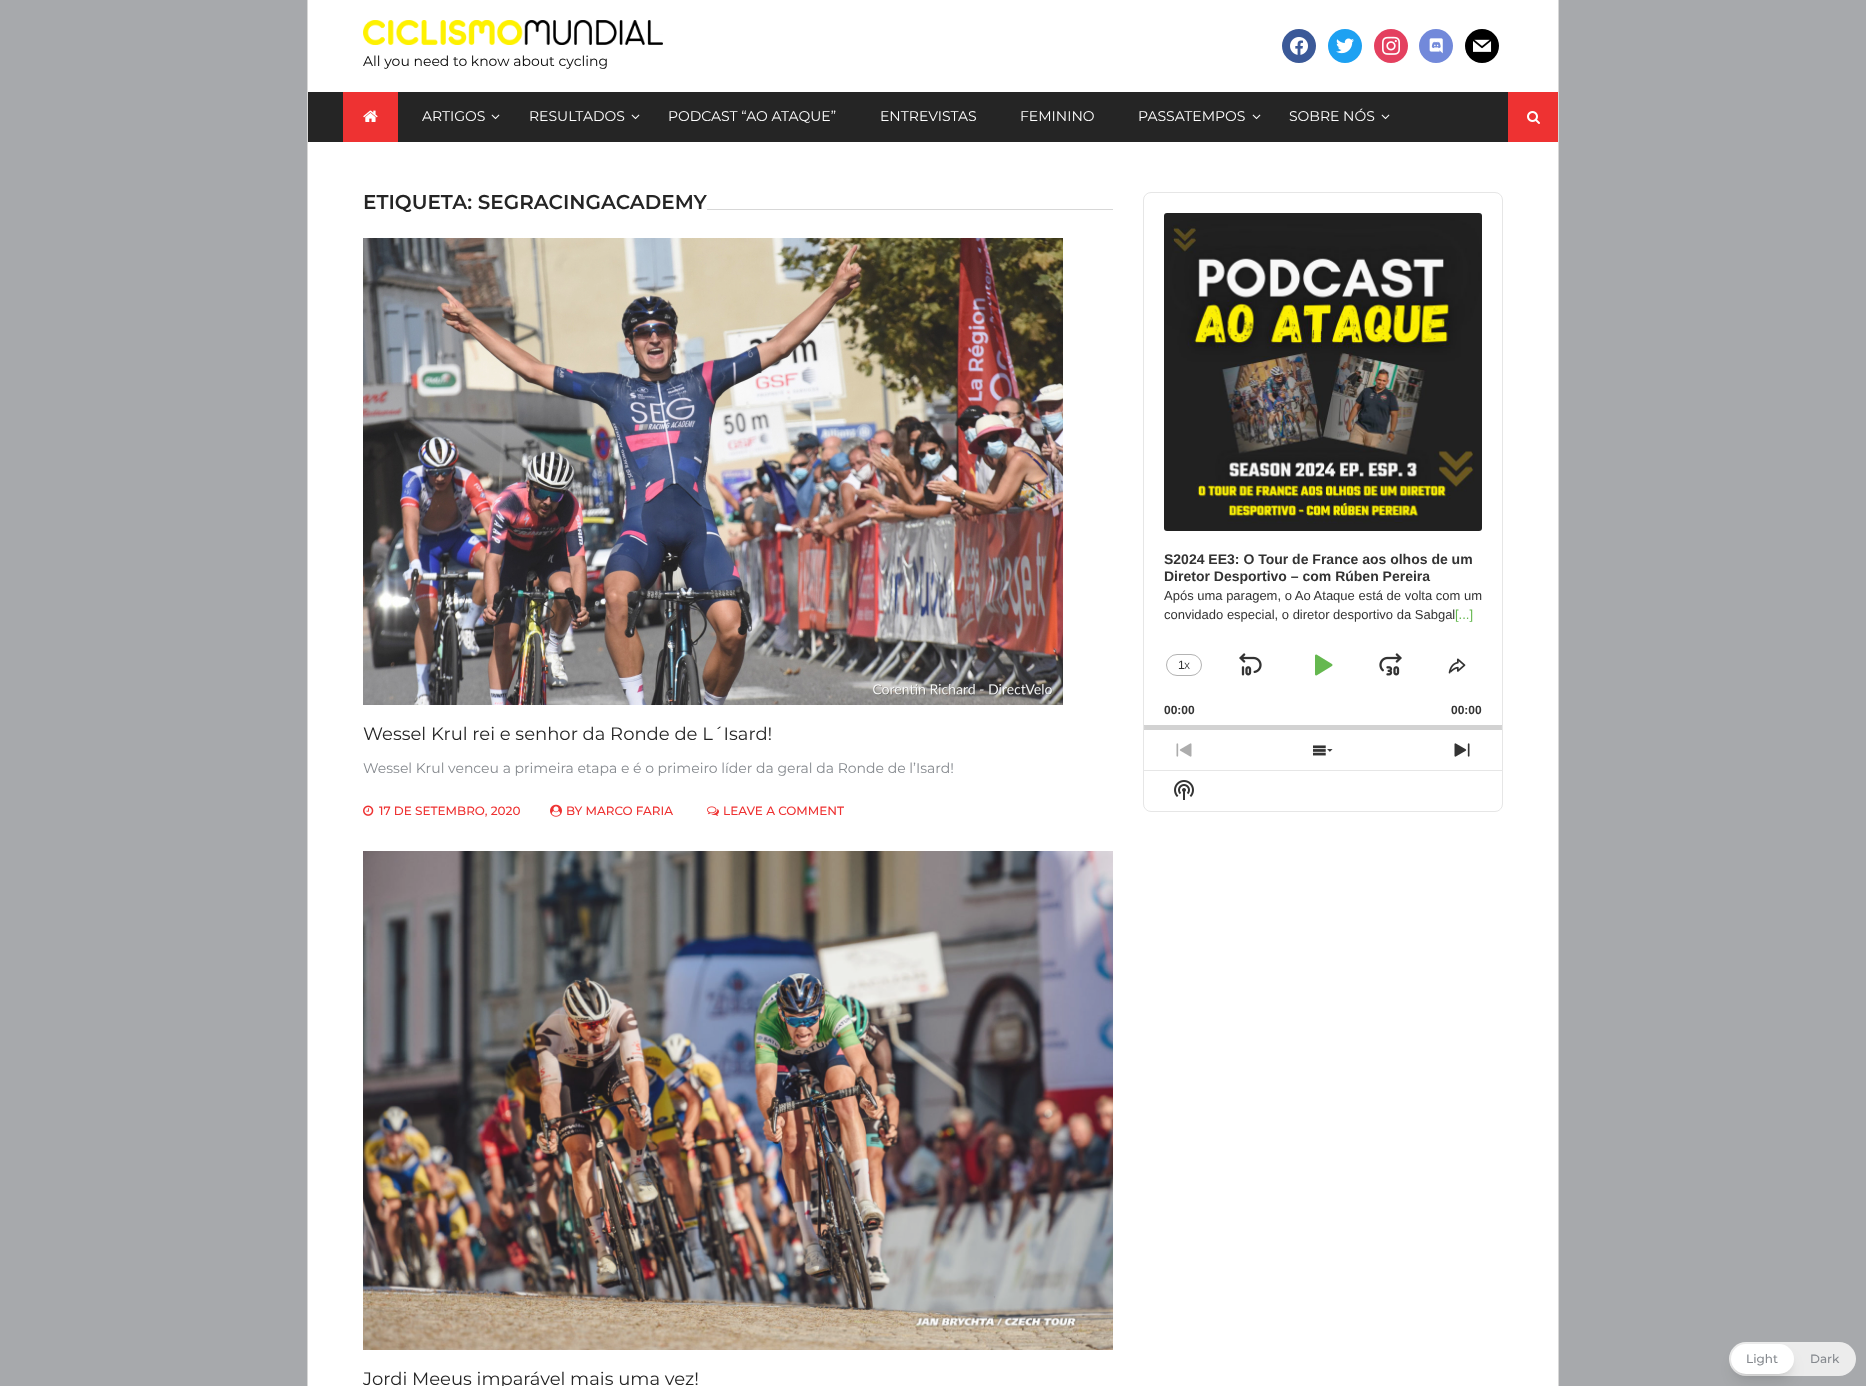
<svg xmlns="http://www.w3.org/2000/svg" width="1866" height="1386">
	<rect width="100%" height="100%" fill="#A7A9AC" />
	<rect x="308" y="0" width="1250" height="1386" fill="#FFFFFF" />
	<rect x="1558" y="0" width="1" height="1386" fill="#D7D7D7" />
	<rect x="307" y="0" width="1" height="1386" fill="#D7D7D7" />
	<image x="363" y="20" width="300" height="25" href="assets/img1.png" />
	<text x="363" y="66" font-family="Montserrat" font-size="14" fill="#000000">All you need to know about cycling</text>
	<circle cx="1299" cy="46" r="17" fill="#3B5998" />
	<image x="1290" y="37" width="18" height="18" href="assets/img2.png" />
	<circle cx="1345" cy="46" r="17" fill="#1DA1F2" />
	<image x="1336" y="38" width="18" height="16" href="assets/img3.png" />
	<circle cx="1391" cy="46" r="17" fill="#E4405F" />
	<image x="1382" y="36" width="18" height="19" href="assets/img4.png" />
	<circle cx="1436" cy="46" r="17" fill="#7289DA" />
	<image x="1429" y="38" width="14" height="16" href="assets/img5.png" />
	<circle cx="1482" cy="46" r="17" fill="#000000" />
	<image x="1473" y="39" width="19" height="13" href="assets/img6.png" />
	<rect x="308" y="92" width="1200" height="50" fill="#252525" />
	<rect x="343" y="92" width="55" height="50" fill="#EE3232" />
	<image x="363" y="110" width="15" height="12" href="assets/img7.png" />
	<text x="422" y="121" font-family="Montserrat" font-size="14" fill="#FFFFFF">ARTIGOS</text>
	<image x="491" y="114" width="9" height="6" href="assets/img8.png" />
	<text x="529" y="121" font-family="Montserrat" font-size="14" fill="#FFFFFF">RESULTADOS</text>
	<image x="631" y="114" width="9" height="6" href="assets/img8.png" />
	<g font-family="Montserrat" font-size="14" fill="#FFFFFF">
		<text x="668" y="121">PODCAST “AO ATAQUE”</text>
		<text x="880" y="121">ENTREVISTAS</text>
		<text x="1020" y="121">FEMININO</text>
		<text x="1138" y="121">PASSATEMPOS</text>
	</g>
	<image x="1252" y="114" width="9" height="6" href="assets/img8.png" />
	<text x="1289" y="121" font-family="Montserrat" font-size="14" fill="#FFFFFF">SOBRE NÓS</text>
	<image x="1381" y="114" width="9" height="6" href="assets/img8.png" />
	<rect x="1508" y="92" width="50" height="50" fill="#EE3232" />
	<image x="1527" y="111" width="13" height="13" href="assets/img9.png" />
	<rect x="707" y="209" width="406" height="1" fill="#D7D7D7" />
	<text x="363" y="209" font-family="Montserrat" font-size="20" font-weight="600" fill="#252525">ETIQUETA: SEGRACINGACADEMY</text>
	<image x="363" y="238" width="700" height="467" href="assets/img10.png" />
	<text x="363" y="740" font-family="Montserrat" font-size="18" fill="#252525">Wessel Krul rei e senhor da Ronde de L´Isard!</text>
	<text x="363" y="773" font-family="Montserrat" font-size="14" fill="#85898E">Wessel Krul venceu a primeira etapa e é o primeiro líder da geral da Ronde de l’Isard!</text>
	<image x="363" y="805" width="11" height="11" href="assets/img11.png" />
	<text x="379" y="815" font-family="Montserrat" font-size="12" font-weight="500" fill="#EE3232">17 DE SETEMBRO, 2020</text>
	<image x="550" y="804" width="12" height="13" href="assets/img12.png" />
	<text x="566" y="815" font-family="Montserrat" font-size="12" font-weight="500" fill="#EE3232">BY MARCO FARIA</text>
	<image x="707" y="806" width="12" height="10" href="assets/img13.png" />
	<text x="723" y="815" font-family="Montserrat" font-size="12" font-weight="500" fill="#EE3232">LEAVE A COMMENT</text>
	<image x="363" y="851" width="750" height="499" href="assets/img14.png" />
	<text x="363" y="1385" font-family="Montserrat" font-size="18" fill="#252525">Jordi Meeus imparável mais uma vez!</text>
	<rect x="1143.5" y="192.5" width="359" height="619" rx="7.5" fill="none" stroke="#E6E6E6" />
	<image x="1164" y="213" width="318" height="318" href="assets/img15.png" />
	<g font-family="Liberation Sans" font-size="14" font-weight="700" fill="#333333">
		<text x="1164" y="564">S2024 EE3: O Tour de France aos olhos de um</text>
		<text x="1164" y="581">Diretor Desportivo – com Rúben Pereira</text>
	</g>
	<g font-family="Liberation Sans" font-size="13" fill="#333333">
		<text x="1164" y="600">Após uma paragem, o Ao Ataque está de volta com um</text>
		<text x="1164" y="619">convidado especial, o diretor desportivo da Sabgal</text>
	</g>
	<text x="1455" y="619" font-family="Liberation Sans" font-size="13" fill="#65B84F">[...]</text>
	<rect x="1166.5" y="654.5" width="35" height="21" rx="10.5" fill="none" stroke="#B3B3B3" />
	<text x="1178" y="669" font-family="Liberation Sans" font-size="12" fill="#333333">1</text>
	<text x="1184" y="669" font-family="Liberation Sans" font-size="9" fill="#333333">X</text>
	<image x="1239" y="653" width="23" height="23" href="assets/img16.png" />
	<image x="1315" y="654" width="18" height="22" href="assets/img17.png" />
	<image x="1379" y="653" width="23" height="23" href="assets/img18.png" />
	<image x="1448" y="658" width="18" height="16" href="assets/img19.png" />
	<g font-family="Liberation Sans" font-size="12" font-weight="700" fill="#333333">
		<text x="1164" y="714">00:00</text>
		<text x="1451" y="714">00:00</text>
	</g>
	<rect x="1144" y="725" width="358" height="5" fill="#D2D2D2" />
	<rect x="1144.5" y="725.5" width="357" height="4" rx="2" fill="none" stroke="#D7D7D7" />
	<rect x="1145" y="725" width="356" height="5" rx="2.5" fill="#D2D2D2" />
	<image x="1176" y="743" width="16" height="14" href="assets/img20.png" />
	<image x="1313" y="745" width="20" height="11" href="assets/img21.png" />
	<image x="1454" y="743" width="16" height="14" href="assets/img22.png" />
	<rect x="1144" y="770" width="358" height="1" fill="#E6E6E6" />
	<image x="1174" y="780" width="20" height="20" href="assets/img23.png" />
	<rect x="1729" y="1342" width="127" height="34" rx="17" fill="#ECECEC" />
	<rect x="1735" y="1352" width="55" height="22" rx="11" fill="#000000" fill-opacity="0.1" filter="blur(3px)" />
	<rect x="1734" y="1357" width="57" height="24" rx="12" fill="#000000" fill-opacity="0.1" filter="blur(7.5px)" />
	<rect x="1731" y="1344" width="63" height="30" rx="15" fill="#FFFFFF" />
	<g font-family="Montserrat" font-size="12" font-weight="500" fill="#85898E">
		<text x="1746" y="1363">Light</text>
		<text x="1810" y="1363">Dark</text>
	</g>
</svg>
